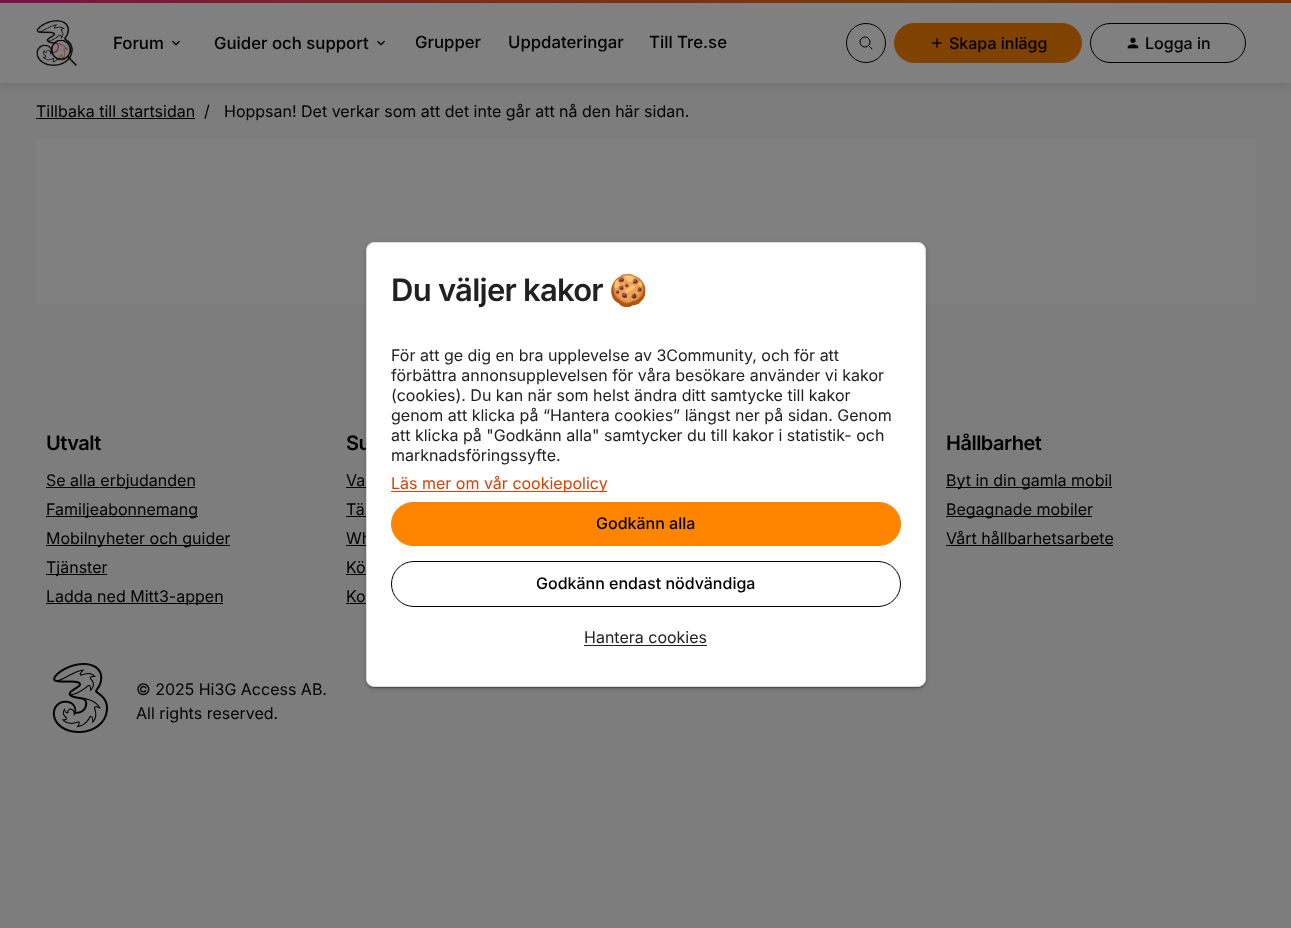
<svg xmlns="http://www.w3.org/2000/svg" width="1291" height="928">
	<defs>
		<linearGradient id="g1" gradientUnits="userSpaceOnUse" x1="0" y1="1.5" x2="1291" y2="1.5"><stop offset="0" stop-color="#7D1048" /><stop offset="0.2" stop-color="#7D202E" /><stop offset="0.4" stop-color="#7C2D1A" /><stop offset="0.6" stop-color="#7C350D" /><stop offset="0.8" stop-color="#7C3808" /><stop offset="1" stop-color="#802E00" /></linearGradient>
	</defs>
	<rect width="100%" height="100%" fill="#7D7D7D" />
	<rect x="0" y="5" width="1291" height="80" fill="#000000" fill-opacity="0.12" filter="blur(4px)" />
	<rect x="0" y="0" width="1291" height="3" fill="url(#g1)" />
	<rect x="0" y="3" width="1291" height="80" fill="#808080" />
	<image x="36" y="20" width="41" height="46" href="assets/img1.png" />
	<text x="113" y="49" font-family="Inter" font-size="16.75" font-weight="500" fill="#000000">Forum</text>
	<image x="172" y="40" width="8" height="6" href="assets/img2.png" />
	<text x="214" y="49" font-family="Inter" font-size="16.75" font-weight="500" fill="#000000">Guider och support</text>
	<image x="377" y="40" width="8" height="6" href="assets/img2.png" />
	<g font-family="Inter" font-size="16.75" font-weight="500" fill="#000000">
		<text x="415" y="48">Grupper</text>
		<text x="508" y="48">Uppdateringar</text>
		<text x="649" y="48">Till Tre.se</text>
	</g>
	<circle cx="866" cy="43" r="19.5" fill="none" stroke="#000000" />
	<circle cx="865" cy="42" r="5" fill="none" stroke="#000000" />
	<path d="M869 46L872 49" fill="none" stroke="#000000" stroke-linecap="round" />
	<rect x="894.5" y="23.5" width="187" height="39" rx="19.5" fill="#804200" stroke="#804200" />
	<image x="932" y="38" width="10" height="10" href="assets/img3.png" />
	<text x="949" y="49" font-family="Inter" font-size="16" font-weight="500" fill="#000000">Skapa inlägg</text>
	<rect x="1090.5" y="23.5" width="155" height="39" rx="19.5" fill="none" stroke="#000000" />
	<image x="1127" y="37" width="12" height="12" href="assets/img4.png" />
	<text x="1145" y="49" font-family="Inter" font-size="16" font-weight="500" fill="#000000">Logga in</text>
	<text x="36" y="117" font-family="Inter" font-size="16" fill="#000000">Tillbaka till startsidan</text>
	<rect x="36" y="118" width="159" height="1" fill="#000000" />
	<g font-family="Inter" font-size="16" fill="#000000">
		<text x="204" y="117">/</text>
		<text x="224" y="117">Hoppsan! Det verkar som att det inte går att nå den här sidan.</text>
	</g>
	<rect x="36" y="139" width="1220" height="165" fill="#808080" />
	<rect x="346" y="487" width="20" height="1" fill="#000000" />
	<rect x="346" y="516" width="20" height="1" fill="#000000" />
	<rect x="346" y="545" width="20" height="1" fill="#000000" />
	<rect x="346" y="574" width="20" height="1" fill="#000000" />
	<rect x="346" y="603" width="20" height="1" fill="#000000" />
	<rect x="366" y="243" width="560" height="445" rx="8" fill="#000000" fill-opacity="0.12" filter="blur(2.5px)" />
	<rect x="366" y="244" width="560" height="445" rx="8" fill="#000000" fill-opacity="0.14" filter="blur(1px)" />
	<rect x="368" y="247" width="556" height="441" rx="6" fill="#000000" fill-opacity="0.2" filter="blur(0.5px)" />
	<text x="346" y="450" font-family="Inter" font-size="20" font-weight="600" letter-spacing="-0.5" fill="#000000">Su</text>
	<text x="346" y="544" font-family="Inter" font-size="16" fill="#000000">Wh</text>
	<rect x="366.5" y="242.5" width="559" height="444" rx="7.5" fill="#FFFFFF" stroke="#DCDCDC" />
	<text x="391" y="301" font-family="Inter" font-size="31" font-weight="600" letter-spacing="-0.75" fill="#212121">Du väljer kakor</text>
	<text x="609" y="301" font-family="Noto Color Emoji" font-size="31" font-weight="700" letter-spacing="-0.75" fill="#212121">🍪</text>
	<g font-family="Inter" font-size="16" fill="#212121">
		<text x="391" y="361">För att ge dig en bra upplevelse av 3Community, och för att</text>
		<text x="391" y="381">förbättra annonsupplevelsen för våra besökare använder vi kakor</text>
		<text x="391" y="401">(cookies). Du kan när som helst ändra ditt samtycke till kakor</text>
		<text x="391" y="421">genom att klicka på “Hantera cookies” längst ner på sidan. Genom</text>
		<text x="391" y="441">att klicka på "Godkänn alla" samtycker du till kakor i statistik- och</text>
		<text x="391" y="461">marknadsföringssyfte.</text>
	</g>
	<rect x="391" y="491" width="216" height="1" fill="#D64105" />
	<text x="391" y="489" font-family="Inter" font-size="16" fill="#D64105">Läs mer om vår cookiepolicy</text>
	<rect x="391.5" y="502.5" width="509" height="43" rx="21.5" fill="#FF8400" stroke="#FF8400" />
	<text x="596" y="529" font-family="Inter" font-size="16" font-weight="500" fill="#000000">Godkänn alla</text>
	<rect x="391.5" y="561.5" width="509" height="45" rx="22.5" fill="none" stroke="#000000" />
	<text x="536" y="589" font-family="Inter" font-size="16" font-weight="500" fill="#000000">Godkänn endast nödvändiga</text>
	<text x="584" y="643" font-family="Inter" font-size="16" fill="#212121">Hantera cookies</text>
	<rect x="584" y="645" width="123" height="1" fill="#212121" />
	<text x="46" y="450" font-family="Inter" font-size="20" font-weight="600" letter-spacing="-0.5" fill="#000000">Utvalt</text>
	<rect x="46" y="487" width="149" height="1" fill="#000000" />
	<text x="46" y="486" font-family="Inter" font-size="16" fill="#000000">Se alla erbjudanden</text>
	<rect x="46" y="516" width="152" height="1" fill="#000000" />
	<text x="46" y="515" font-family="Inter" font-size="16" fill="#000000">Familjeabonnemang</text>
	<rect x="46" y="545" width="184" height="1" fill="#000000" />
	<text x="46" y="544" font-family="Inter" font-size="16" fill="#000000">Mobilnyheter och guider</text>
	<rect x="46" y="574" width="61" height="1" fill="#000000" />
	<text x="46" y="573" font-family="Inter" font-size="16" fill="#000000">Tjänster</text>
	<rect x="46" y="603" width="177" height="1" fill="#000000" />
	<g font-family="Inter" font-size="16" fill="#000000">
		<text x="46" y="602">Ladda ned Mitt3-appen</text>
		<text x="346" y="486">Va</text>
		<text x="346" y="515">Tä</text>
		<text x="346" y="573">Kö</text>
		<text x="346" y="602">Ko</text>
	</g>
	<text x="946" y="450" font-family="Inter" font-size="20" font-weight="600" letter-spacing="-0.5" fill="#000000">Hållbarhet</text>
	<rect x="946" y="487" width="166" height="1" fill="#000000" />
	<text x="946" y="486" font-family="Inter" font-size="16" fill="#000000">Byt in din gamla mobil</text>
	<rect x="946" y="516" width="146" height="1" fill="#000000" />
	<g font-family="Inter" font-size="16" fill="#000000">
		<text x="946" y="515">Begagnade mobiler</text>
		<text x="946" y="544">Vårt hållbarhetsarbete</text>
	</g>
	<rect x="946" y="545" width="167" height="1" fill="#000000" />
	<image x="52" y="663" width="56" height="70" href="assets/img5.png" />
	<g font-family="Inter" font-size="16" fill="#000000">
		<text x="136" y="695">© 2025 Hi3G Access AB.</text>
		<text x="136" y="719">All rights reserved.</text>
	</g>
</svg>
